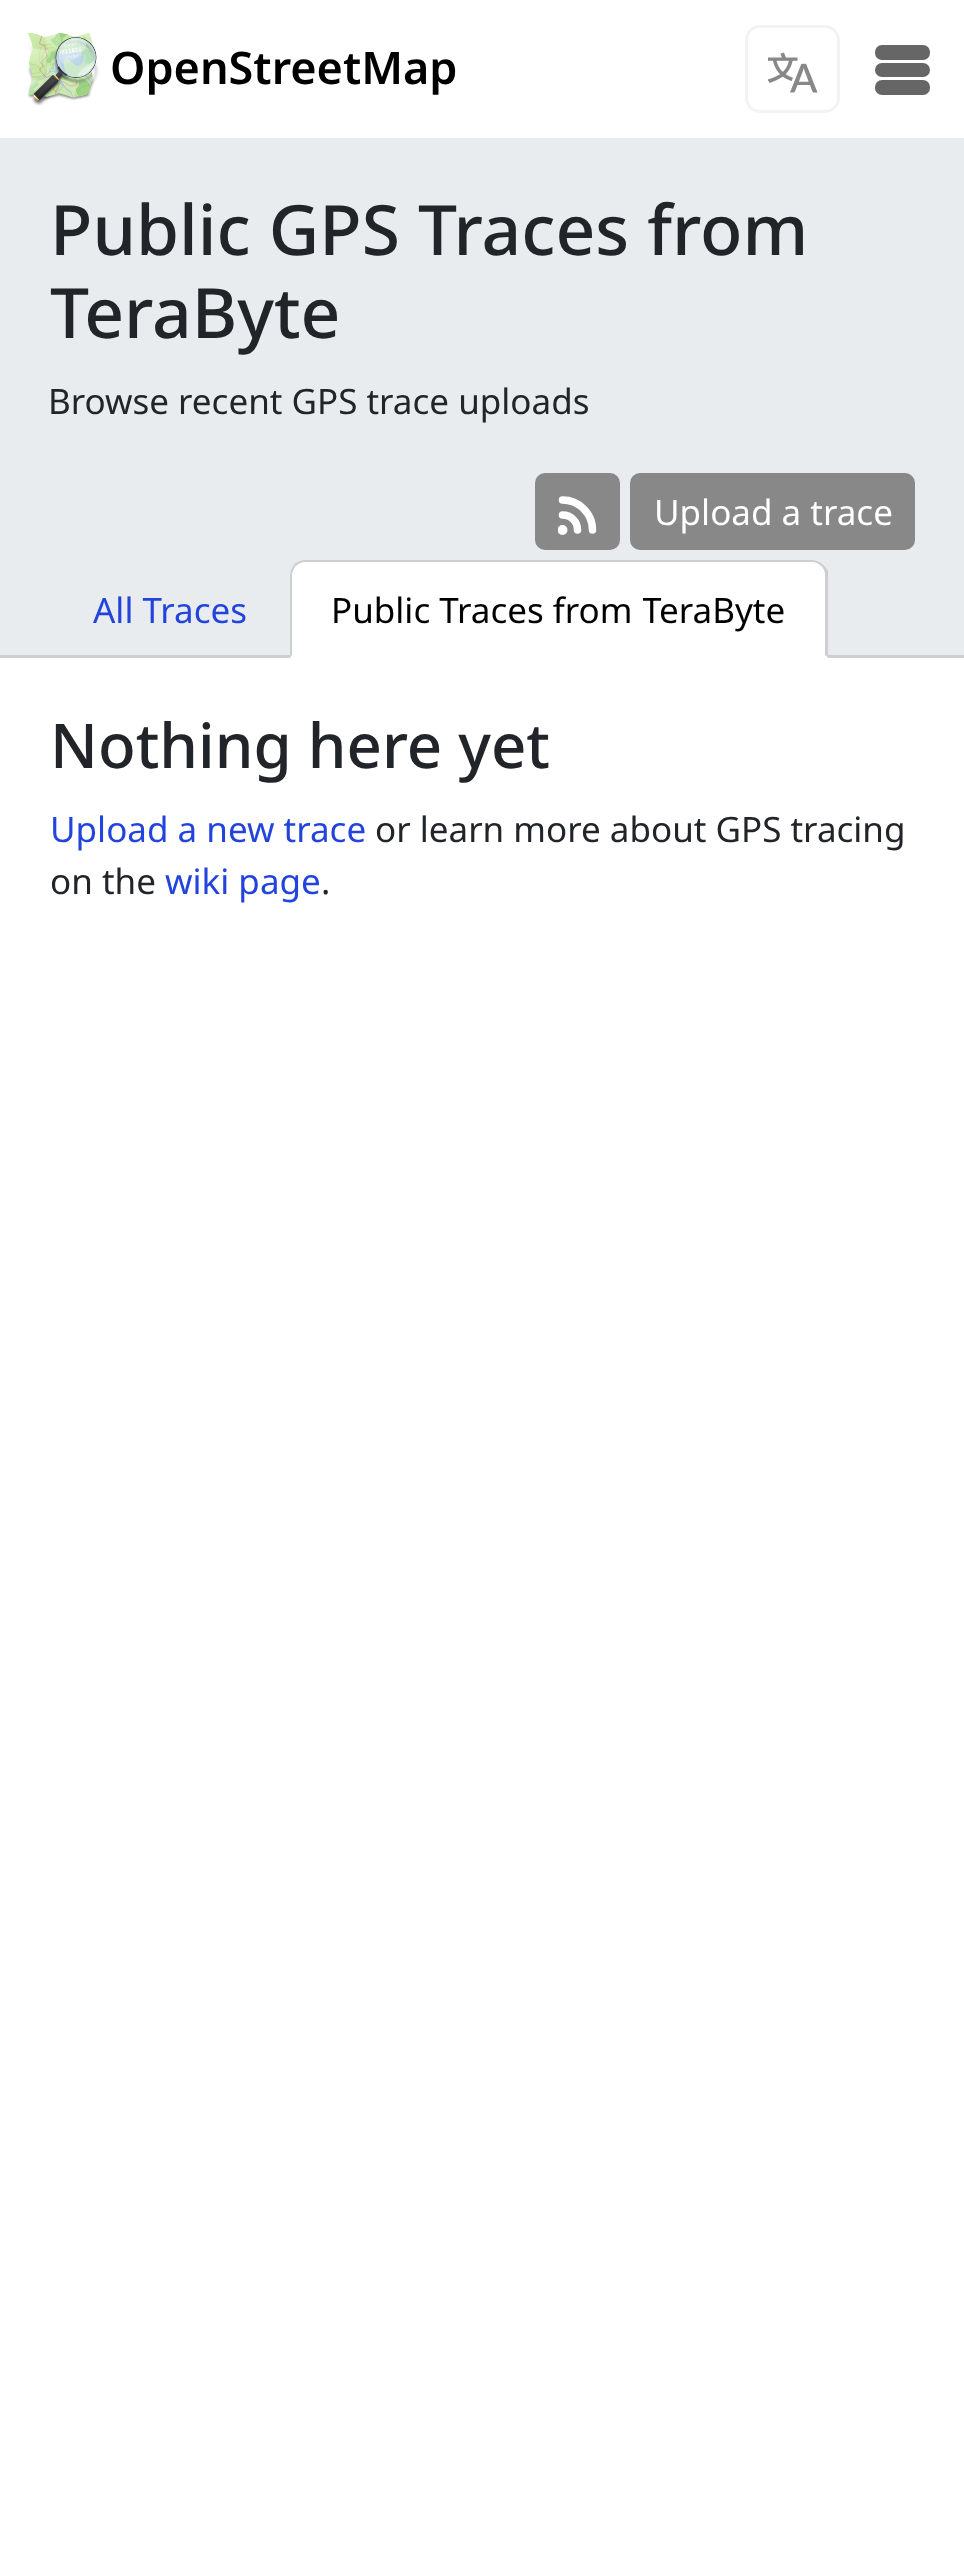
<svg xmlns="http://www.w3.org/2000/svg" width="964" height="2564">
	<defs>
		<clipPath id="clip1"><rect x="558" y="495" width="40" height="40" /></clipPath>
		<clipPath id="clip2"><rect x="643" y="583" width="142" height="52" /></clipPath>
	</defs>
	<rect width="100%" height="100%" fill="#FFFFFF" />
	<image x="27" y="33" width="72" height="73" href="assets/img1.png" />
	<text x="110" y="84" font-family="Noto Sans" font-size="45" font-weight="600" fill="#000000">OpenStreetMap</text>
	<rect x="746.5" y="26.5" width="92" height="85" rx="13.5" fill="none" stroke="#F3F3F3" stroke-width="3" />
	<image x="768" y="52" width="50" height="41" href="assets/img2.png" />
	<rect x="875" y="45" width="55" height="15" rx="7" fill="#666666" />
	<rect x="875" y="63" width="55" height="14" rx="7" fill="#666666" />
	<rect x="875" y="80" width="55" height="15" rx="7" fill="#666666" />
	<rect x="0" y="138" width="964" height="517" fill="#E9ECEF" />
	<rect x="0" y="655" width="964" height="3" fill="#CFCFCF" />
	<g font-family="Noto Sans" font-size="69.5" font-weight="500" fill="#212529">
		<text x="50" y="255">Public GPS Traces from</text>
		<text x="50" y="338">TeraByte</text>
	</g>
	<text x="48" y="414" font-family="Noto Sans" font-size="35" fill="#212529">Browse recent GPS trace uploads</text>
	<rect x="536.5" y="474.5" width="82" height="74" rx="8.5" fill="#888888" stroke="#888888" stroke-width="3" />
	<g clip-path="url(#clip1)">
		<circle cx="562.5" cy="530" r="5" fill="#FFFFFF" />
	</g>
	<path d="M577.5 530C577.5 521.5 571 515 562.5 515M592.5 530C592.5 513.5 579 500 562.5 500" fill="none" stroke="#FFFFFF" stroke-width="7.5" stroke-linecap="round" />
	<rect x="631.5" y="474.5" width="282" height="74" rx="8.5" fill="#888888" stroke="#888888" stroke-width="3" />
	<text x="654" y="525" font-family="Noto Sans" font-size="35" fill="#FFFFFF">Upload a trace</text>
	<text x="93" y="623" font-family="Noto Sans" font-size="35" fill="#2244DD">All Traces</text>
	<path d="M305 560H813C821.5 560 828 566.5 828 575V658H290V575C290 566.5 296.5 560 305 560Z" fill="#FFFFFF" />
	<path d="M305 560C301 560 297 562 294 564L296 566C298 564 302 562 305 562H812C816 562 819 564 821 566L823 564C820 562 816 560 812 560Z" fill="#CFCFCF" />
	<path d="M823 564C825 566 827 569 828 571V658L825 655V575C825 572 824 568 821 566Z" fill="#CFCFCF" />
	<path d="M828 658L825 655H292L290 658Z" fill="#FFFFFF" />
	<path d="M290 658L292 655V575C292 572 294 568 296 566L294 564C292 567 290 571 290 575Z" fill="#CFCFCF" />
	<text x="331" y="623" font-family="Noto Sans" font-size="35" fill="#000000">Public Traces from</text>
	<g clip-path="url(#clip2)">
		<text x="642" y="623" font-family="Noto Sans" font-size="35" fill="#000000">TeraByte</text>
	</g>
	<text x="50" y="768" font-family="Noto Sans" font-size="61.75" font-weight="500" fill="#212529">Nothing here yet</text>
	<text x="50" y="842" font-family="Noto Sans" font-size="35" fill="#2244DD">Upload a new trace</text>
	<g font-family="Noto Sans" font-size="35" fill="#212529">
		<text x="375" y="842">or learn more about GPS tracing</text>
		<text x="50" y="894">on the</text>
	</g>
	<text x="165" y="894" font-family="Noto Sans" font-size="35" fill="#2244DD">wiki page</text>
	<text x="321" y="894" font-family="Noto Sans" font-size="35" fill="#212529">.</text>
</svg>
